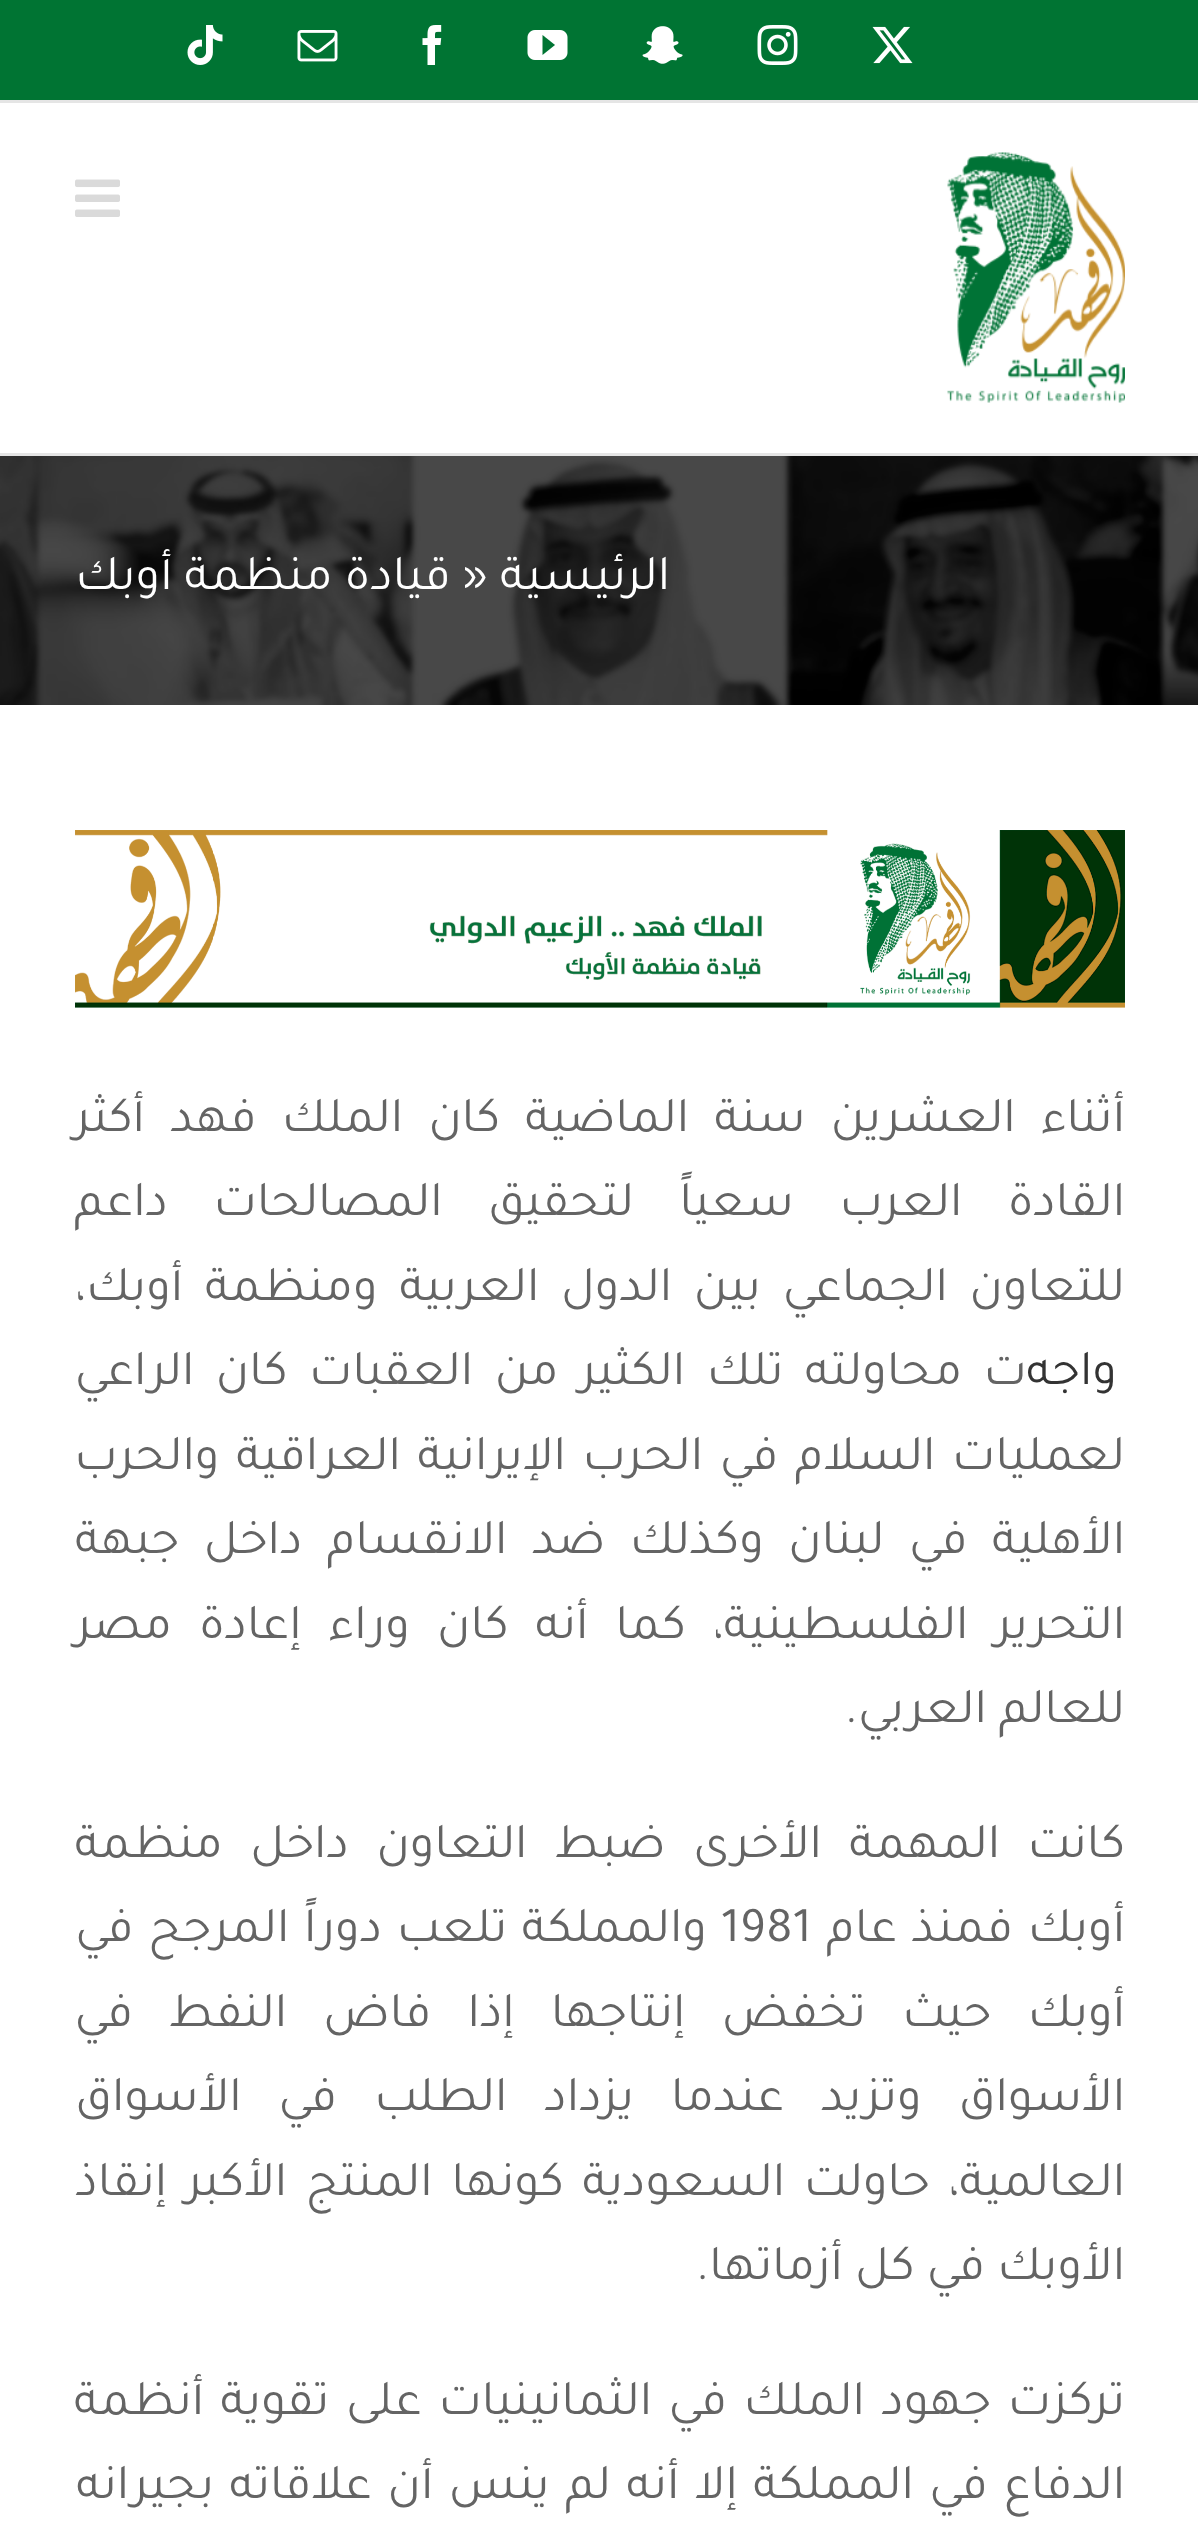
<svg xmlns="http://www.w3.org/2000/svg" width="1198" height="2540">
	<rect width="100%" height="100%" fill="#FFFFFF" />
	<rect x="0" y="0" width="1198" height="100" fill="#007433" />
	<rect x="0" y="100" width="1198" height="3" fill="#E5E5E5" />
	<image x="872" y="26" width="41" height="38" href="assets/img1.png" />
	<image x="757" y="25" width="41" height="40" href="assets/img2.png" />
	<image x="642" y="26" width="41" height="38" href="assets/img3.png" />
	<image x="527" y="30" width="41" height="30" href="assets/img4.png" />
	<image x="422" y="25" width="20" height="40" href="assets/img5.png" />
	<image x="297" y="30" width="41" height="32" href="assets/img6.png" />
	<image x="187" y="25" width="36" height="40" href="assets/img7.png" />
	<rect x="0" y="453" width="1198" height="3" fill="#E5E5E5" />
	<image x="947" y="152" width="178" height="251" href="assets/img8.png" />
	<image x="75" y="179" width="45" height="38" href="assets/img9.png" />
	<image x="0" y="456" width="1198" height="249" href="assets/img10.png" />
	<text x="670" y="589" font-family="Tajawal" font-size="50" direction="rtl" fill="#FFFFFF">الرئيسية</text>
	<text x="463" y="589" font-family="Tajawal" font-size="50" fill="#FFFFFF">»</text>
	<text x="451" y="589" font-family="Tajawal" font-size="50" direction="rtl" fill="#FFFFFF">قيادة منظمة أوبك</text>
	<image x="75" y="830" width="1050" height="178" href="assets/img11.png" />
	<g font-family="Tajawal" font-size="50" direction="rtl" fill="#646464">
		<text x="1125" y="1131" word-spacing="13.25">أثناء العشرين سنة الماضية كان الملك فهد أكثر</text>
		<text x="1125" y="1215" word-spacing="33.5">القادة العرب سعياً لتحقيق المصالحات داعم</text>
		<text x="1125" y="1300" word-spacing="9.75">للتعاون الجماعي بين الدول العربية ومنظمة أوبك،</text>
	</g>
	<text x="1117" y="1384" font-family="Tajawal" font-size="50" direction="rtl" fill="#333333">واجه</text>
	<g font-family="Tajawal" font-size="50" direction="rtl" fill="#646464">
		<text x="1027" y="1384" word-spacing="9.5">ت محاولته تلك الكثير من العقبات كان الراعي</text>
		<text x="1125" y="1469" word-spacing="4.75">لعمليات السلام في الحرب الإيرانية العراقية والحرب</text>
		<text x="1125" y="1553" word-spacing="12.5">الأهلية في لبنان وكذلك ضد الانقسام داخل جبهة</text>
		<text x="1125" y="1638" word-spacing="15">التحرير الفلسطينية، كما أنه كان وراء إعادة مصر</text>
		<text x="1125" y="1722">للعالم العربي.</text>
		<text x="1125" y="1857" word-spacing="15.5">كانت المهمة الأخرى ضبط التعاون داخل منظمة</text>
		<text x="1125" y="1941" word-spacing="2.5">أوبك فمنذ عام</text>
	</g>
	<text x="721" y="1941" font-family="Tajawal" font-size="50" fill="#646464">1981</text>
	<g font-family="Tajawal" font-size="50" direction="rtl" fill="#646464">
		<text x="707" y="1941" word-spacing="2.5">والمملكة تلعب دوراً المرجح في</text>
		<text x="1125" y="2026" word-spacing="24.25">أوبك حيث تخفض إنتاجها إذا فاض النفط في</text>
		<text x="1125" y="2110" word-spacing="25">الأسواق وتزيد عندما يزداد الطلب في الأسواق</text>
		<text x="1125" y="2195" word-spacing="6.75">العالمية، حاولت السعودية كونها المنتج الأكبر إنقاذ</text>
		<text x="1125" y="2279">الأوبك في كل أزماتها.</text>
		<text x="1125" y="2414" word-spacing="4.5">تركزت جهود الملك في الثمانينيات على تقوية أنظمة</text>
		<text x="1125" y="2498" word-spacing="3.5">الدفاع في المملكة إلا أنه لم ينس أن علاقاته بجيرانه</text>
	</g>
</svg>
